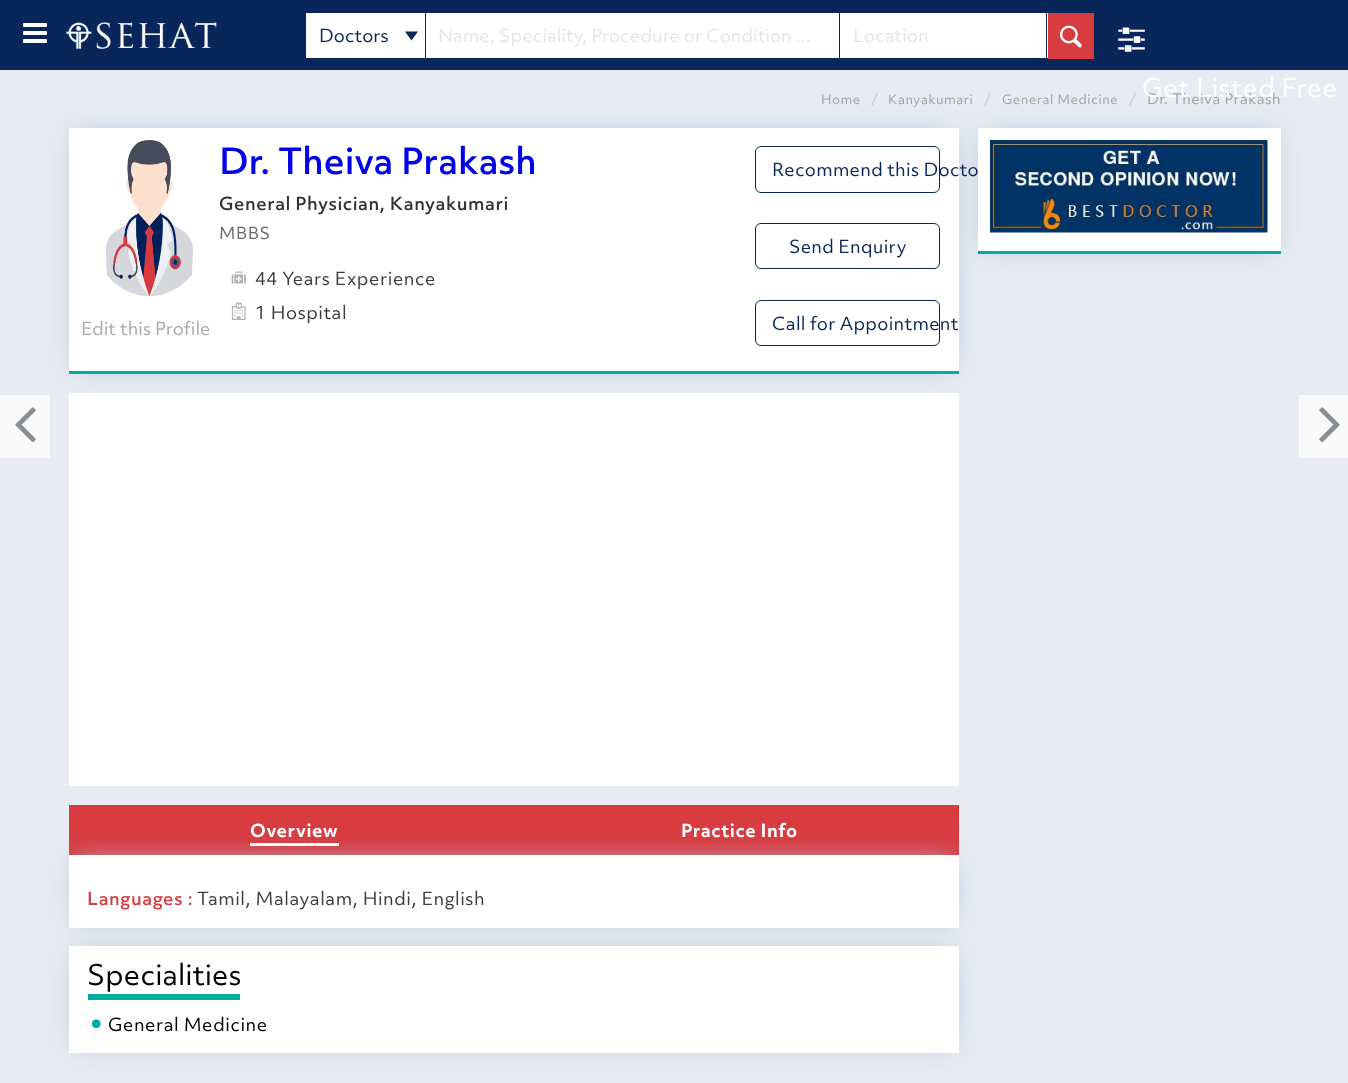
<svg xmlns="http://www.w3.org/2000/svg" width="1348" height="1083">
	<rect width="100%" height="100%" fill="#E8EBF1" />
	<rect x="0" y="0" width="1348" height="70" fill="#09265A" />
	<text x="21" y="47" font-family="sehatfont" font-size="28" fill="#FFFFFF">0</text>
	<image x="66" y="22" width="151" height="27" href="assets/img1.png" />
	<rect x="306" y="13" width="119" height="45" fill="#FFFFFF" />
	<text x="319" y="42" font-family="'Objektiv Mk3'" font-size="17.5" fill="#09265A">Doctors</text>
	<path d="M405 31.5H418L411.5 40.5Z" fill="#09265A" />
	<rect x="426" y="13" width="413" height="45" fill="#FFFFFF" />
	<text x="438" y="42" font-family="'Objektiv Mk3'" font-size="17.5" fill="#E6E6E6">Name, Speciality, Procedure or Condition ...</text>
	<rect x="840" y="13" width="208" height="45" fill="#FFFFFF" />
	<rect x="1046" y="13" width="1" height="45" fill="#09265A" />
	<text x="853" y="42" font-family="'Objektiv Mk3'" font-size="17.5" fill="#E6E6E6">Location</text>
	<rect x="1048" y="13" width="46" height="46" fill="#D73C41" />
	<image x="1060" y="25" width="22" height="23" href="assets/img2.png" />
	<text x="1116" y="54" font-family="sehatfont" font-size="31" fill="#FFFFFF">]</text>
	<text x="1147" y="104" font-family="'Objektiv Mk3'" font-size="14" letter-spacing="0.5" fill="#A3A4A2">Dr. Theiva Prakash</text>
	<rect x="75" y="134" width="878" height="234" fill="#AFC0DE" filter="blur(12.5px)" />
	<rect x="69" y="128" width="890" height="243" fill="#FFFFFF" />
	<rect x="984" y="134" width="291" height="114" fill="#AFC0DE" filter="blur(12.5px)" />
	<text x="1142" y="97" font-family="'Objektiv Mk3'" font-size="25" letter-spacing="0.5" fill="#FFFFFF">Get Listed Free</text>
	<text x="821" y="104" font-family="'Objektiv Mk3'" font-size="12.5" letter-spacing="0.5" fill="#A3A4A2">Home</text>
	<text x="871" y="104" font-family="'Objektiv Mk3'" font-size="14" letter-spacing="0.5" fill="#CCCCCC">/</text>
	<text x="888" y="104" font-family="'Objektiv Mk3'" font-size="12.5" letter-spacing="0.5" fill="#A3A4A2">Kanyakumari</text>
	<text x="984" y="104" font-family="'Objektiv Mk3'" font-size="14" letter-spacing="0.5" fill="#CCCCCC">/</text>
	<text x="1002" y="104" font-family="'Objektiv Mk3'" font-size="12.5" letter-spacing="0.5" fill="#A3A4A2">General Medicine</text>
	<text x="1129" y="104" font-family="'Objektiv Mk3'" font-size="14" letter-spacing="0.5" fill="#CCCCCC">/</text>
	<rect x="69" y="371" width="890" height="3" fill="#00ADA1" />
	<text x="219" y="174" font-family="'Objektiv Mk3'" font-size="35" font-weight="500" fill="#0202EA">Dr. Theiva Prakash</text>
	<text x="219" y="210" font-family="'Objektiv Mk3'" font-size="17.5" font-weight="500" letter-spacing="0.5" fill="#333333">General Physician, Kanyakumari</text>
	<text x="219" y="239" font-family="'Objektiv Mk3'" font-size="16" letter-spacing="0.5" fill="#666666">MBBS</text>
	<image x="231" y="271" width="15" height="13" href="assets/img3.png" />
	<text x="255" y="285" font-family="'Objektiv Mk3'" font-size="17.5" letter-spacing="0.5" fill="#3A3C41">44 Years Experience</text>
	<image x="231" y="302" width="15" height="18" href="assets/img4.png" />
	<text x="255" y="319" font-family="'Objektiv Mk3'" font-size="17.5" letter-spacing="0.5" fill="#3A3C41">1 Hospital</text>
	<image x="105" y="140" width="88" height="156" href="assets/img5.png" />
	<text x="81" y="335" font-family="'Objektiv Mk3'" font-size="17.5" fill="#AAAAAA">Edit this Profile</text>
	<rect x="755.5" y="146.5" width="184" height="46" rx="5.5" fill="none" stroke="#09265A" />
	<text x="772" y="176" font-family="'Objektiv Mk3'" font-size="17.5" letter-spacing="0.25" fill="#09265A">Recommend this Docto</text>
	<rect x="755.5" y="223.5" width="184" height="45" rx="5.5" fill="none" stroke="#09265A" />
	<text x="789" y="253" font-family="'Objektiv Mk3'" font-size="17.5" letter-spacing="0.25" fill="#09265A">Send Enquiry</text>
	<rect x="755.5" y="300.5" width="184" height="45" rx="5.5" fill="none" stroke="#09265A" />
	<text x="772" y="330" font-family="'Objektiv Mk3'" font-size="17.5" letter-spacing="0.25" fill="#09265A">Call for Appointment</text>
	<rect x="0" y="395" width="50" height="63" fill="#F9F9F9" />
	<image x="15" y="407" width="21" height="36" href="assets/img6.png" />
	<rect x="69" y="393" width="890" height="393" fill="#FFFFFF" />
	<rect x="1299" y="395" width="49" height="63" fill="#F9F9F9" />
	<image x="1319" y="407" width="21" height="36" href="assets/img7.png" />
	<rect x="69" y="805" width="890" height="50" fill="#D73C41" />
	<rect x="75" y="861" width="878" height="60" fill="#AFC0DE" filter="blur(12.5px)" />
	<text x="250" y="837" font-family="'Objektiv Mk3'" font-size="17.5" font-weight="700" letter-spacing="0.5" fill="#FFFFFF">Overview</text>
	<rect x="250" y="843" width="89" height="3" fill="#FFFFFF" />
	<text x="681" y="837" font-family="'Objektiv Mk3'" font-size="17.5" font-weight="700" letter-spacing="0.5" fill="#FFFFFF">Practice Info</text>
	<rect x="69" y="855" width="890" height="73" fill="#FFFFFF" />
	<text x="87" y="905" font-family="'Objektiv Mk3'" font-size="17.5" font-weight="500" letter-spacing="0.5" fill="#D73C41">Languages :</text>
	<text x="197" y="905" font-family="'Objektiv Mk3'" font-size="17.5" letter-spacing="0.5" fill="#3A3C41">Tamil, Malayalam, Hindi, English</text>
	<rect x="75" y="953" width="878" height="93" fill="#AFC0DE" filter="blur(12.5px)" />
	<rect x="69" y="946" width="890" height="107" fill="#FFFFFF" />
	<text x="87" y="985" font-family="'Objektiv Mk3'" font-size="27.5" fill="#000000">Specialities</text>
	<rect x="88" y="994" width="152" height="6" fill="#00ADA1" />
	<image x="91" y="1019" width="10" height="10" href="assets/img8.png" />
	<text x="108" y="1031" font-family="'Objektiv Mk3'" font-size="17.5" letter-spacing="0.5" fill="#000000">General Medicine</text>
	<rect x="978" y="128" width="303" height="123" fill="#FFFFFF" />
	<rect x="978" y="251" width="303" height="3" fill="#00ADA1" />
	<image x="990" y="140" width="278" height="93" href="assets/img9.png" />
</svg>
